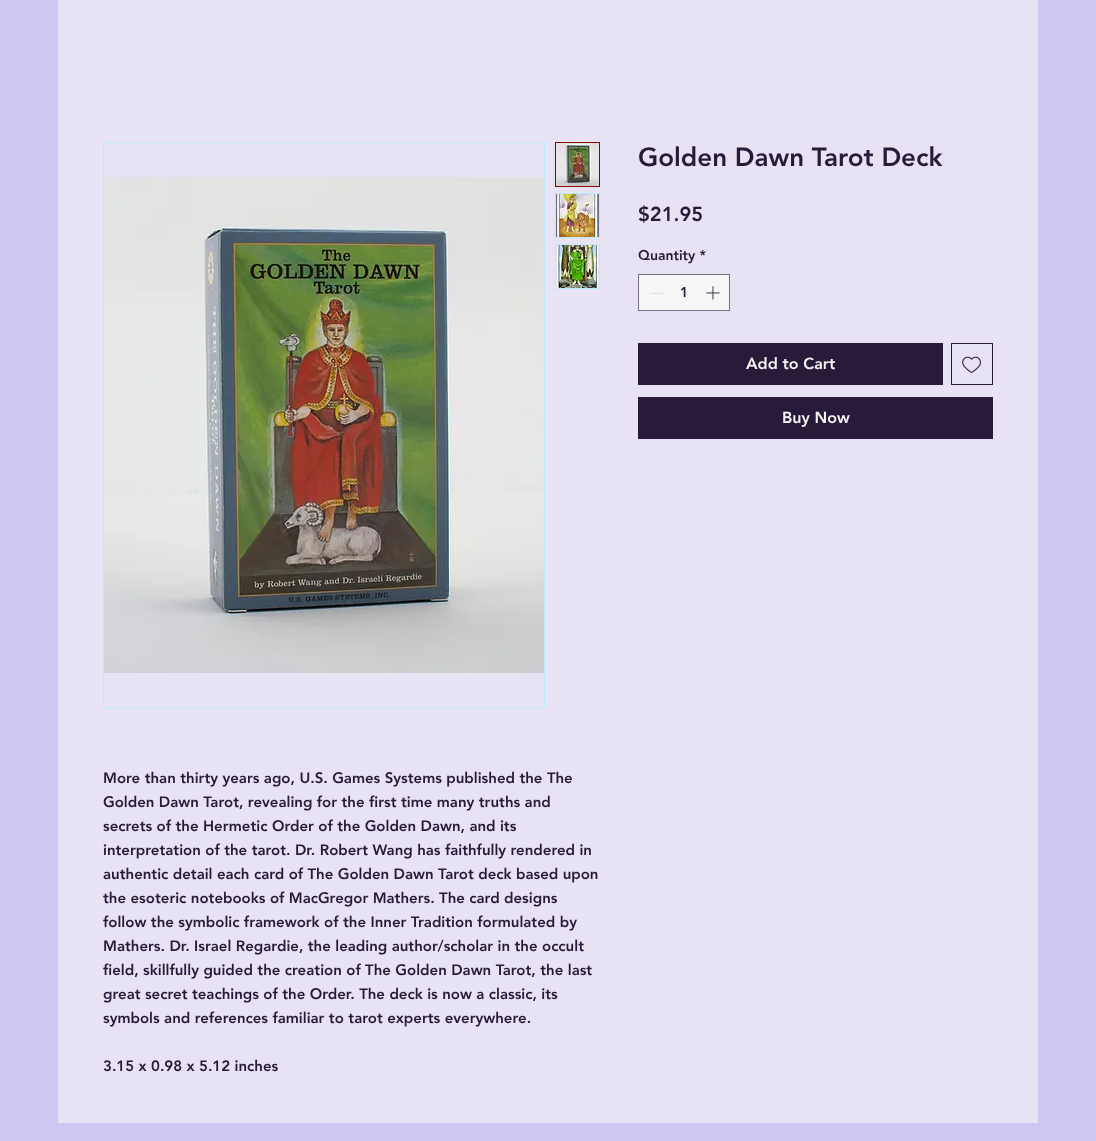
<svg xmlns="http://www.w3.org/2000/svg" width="1096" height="1141">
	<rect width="100%" height="100%" fill="#CFC7F2" />
	<rect x="58" y="0" width="980" height="1123" fill="#E7E2F4" />
	<text x="638" y="166" font-family="'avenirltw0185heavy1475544'" font-size="26" font-weight="900" fill="#281A39">Golden Dawn Tarot Deck</text>
	<text x="638" y="221" font-family="'avenirltw0185heavy1475544'" font-size="20" font-weight="900" fill="#281A39">$21.95</text>
	<text x="638" y="260" font-family="'avenirltw0185heavy1475544'" font-size="14" font-weight="900" fill="#281A39">Quantity *</text>
	<rect x="638.5" y="274.5" width="91" height="36" fill="#F6F6F6" stroke="#7A7285" />
	<rect x="650" y="293" width="13" height="1" fill="#DFDFDF" />
	<text x="680" y="297" font-family="'avenirltw0185heavy1475544'" font-size="14" font-weight="900" fill="#281A39">1</text>
	<image x="706" y="286" width="14" height="14" href="assets/img1.png" />
	<rect x="638" y="343" width="305" height="42" fill="#281A39" />
	<text x="746" y="369" font-family="'avenirltw0185heavy1475544'" font-size="16" font-weight="900" fill="#F6F6F6">Add to Cart</text>
	<rect x="951.5" y="343.5" width="41" height="41" fill="none" stroke="#281A39" />
	<image x="962" y="356" width="19" height="17" href="assets/img2.png" />
	<rect x="638" y="397" width="355" height="42" fill="#281A39" />
	<text x="782" y="423" font-family="'avenirltw0185heavy1475544'" font-size="16" font-weight="900" fill="#F6F6F6">Buy Now</text>
	<rect x="103.5" y="142.5" width="441" height="565" fill="none" stroke="#BDE9FB" />
	<image x="104" y="177" width="440" height="496" href="assets/img3.png" />
	<rect x="555.5" y="142.5" width="44" height="44" fill="none" stroke="#8B0000" />
	<image x="556" y="143" width="43" height="43" href="assets/img4.png" />
	<rect x="555" y="193" width="45" height="45" fill="#BDE9FB" />
	<image x="556" y="194" width="43" height="43" href="assets/img5.png" />
	<rect x="555" y="244" width="45" height="45" fill="#BDE9FB" />
	<image x="556" y="245" width="43" height="43" href="assets/img6.png" />
	<g font-family="'avenirltw0185heavy1475544'" font-size="15" font-weight="900" fill="#281A39">
		<text x="103" y="783">More than thirty years ago, U.S. Games Systems published the The</text>
		<text x="103" y="807">Golden Dawn Tarot, revealing for the first time many truths and</text>
		<text x="103" y="831">secrets of the Hermetic Order of the Golden Dawn, and its</text>
		<text x="103" y="855">interpretation of the tarot. Dr. Robert Wang has faithfully rendered in</text>
		<text x="103" y="879">authentic detail each card of The Golden Dawn Tarot deck based upon</text>
		<text x="103" y="903">the esoteric notebooks of MacGregor Mathers. The card designs</text>
		<text x="103" y="927">follow the symbolic framework of the Inner Tradition formulated by</text>
		<text x="103" y="951">Mathers. Dr. Israel Regardie, the leading author/scholar in the occult</text>
		<text x="103" y="975">field, skillfully guided the creation of The Golden Dawn Tarot, the last</text>
		<text x="103" y="999">great secret teachings of the Order. The deck is now a classic, its</text>
		<text x="103" y="1023">symbols and references familiar to tarot experts everywhere.</text>
		<text x="103" y="1071">3.15 x 0.98 x 5.12 inches</text>
	</g>
</svg>
